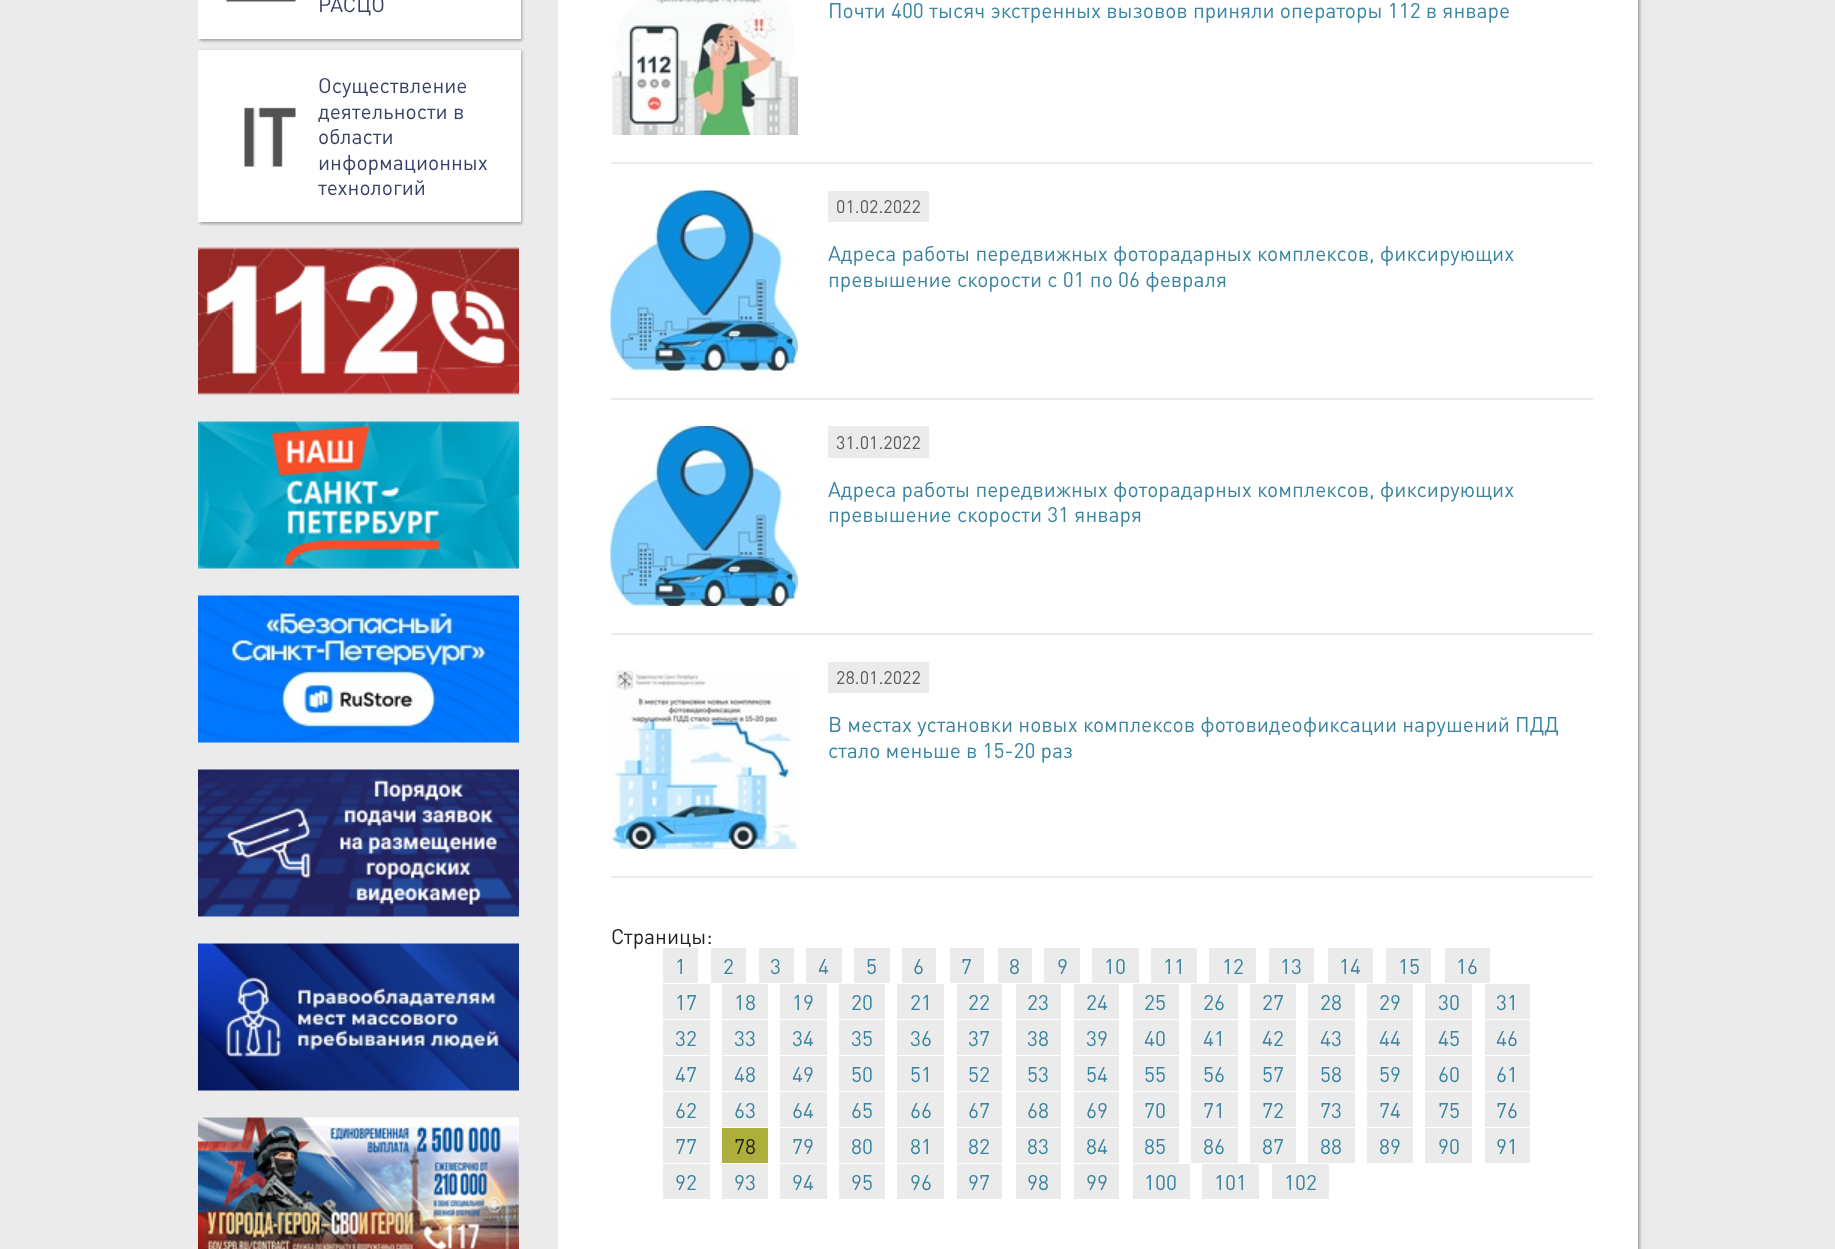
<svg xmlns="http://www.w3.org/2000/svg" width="1835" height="1249">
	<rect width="100%" height="100%" fill="#EBEBEB" />
	<rect x="200" y="-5" width="322" height="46" fill="#000000" fill-opacity="0.3" filter="blur(1.5px)" />
	<rect x="198" y="0" width="323" height="39" fill="#FFFFFF" />
	<image x="226" y="0" width="70" height="2" href="assets/img1.png" />
	<text x="318" y="12" font-family="DIN" font-size="21" fill="#394264">РАСЦО</text>
	<rect x="200" y="51" width="322" height="173" fill="#000000" fill-opacity="0.3" filter="blur(1.5px)" />
	<rect x="198" y="50" width="323" height="172" fill="#FFFFFF" />
	<image x="244" y="107" width="52" height="60" href="assets/img2.png" />
	<g font-family="DIN" font-size="21" fill="#394264">
		<text x="318" y="93">Осуществление</text>
		<text x="318" y="119">деятельности в</text>
		<text x="318" y="144">области</text>
		<text x="318" y="170">информационных</text>
		<text x="318" y="195">технологий</text>
	</g>
	<image x="198" y="247" width="321" height="148" href="assets/img3.png" />
	<image x="198" y="421" width="321" height="148" href="assets/img4.png" />
	<image x="198" y="595" width="321" height="148" href="assets/img5.png" />
	<image x="198" y="769" width="321" height="148" href="assets/img6.png" />
	<image x="198" y="943" width="321" height="148" href="assets/img7.png" />
	<image x="198" y="1117" width="321" height="132" href="assets/img8.png" />
	<rect x="560" y="-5" width="1080" height="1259" fill="#000000" fill-opacity="0.3" filter="blur(1.5px)" />
	<rect x="558" y="0" width="1080" height="1249" fill="#FFFFFF" />
	<rect x="611" y="162" width="982" height="2" fill="#EBEBEB" />
	<image x="610" y="0" width="188" height="135" href="assets/img9.png" />
	<text x="828" y="18" font-family="DIN" font-size="21" fill="#3A84A0">Почти 400 тысяч экстренных вызовов приняли операторы 112 в январе</text>
	<rect x="611" y="398" width="982" height="2" fill="#EBEBEB" />
	<image x="610" y="190" width="188" height="181" href="assets/img10.png" />
	<rect x="828" y="191" width="101" height="31" fill="#EBEBEB" />
	<text x="836" y="213" font-family="DIN" font-size="18" fill="#5C5C5C">01.02.2022</text>
	<g font-family="DIN" font-size="21" fill="#3A84A0">
		<text x="828" y="261">Адреса работы передвижных фоторадарных комплексов, фиксирующих</text>
		<text x="828" y="287">превышение скорости с 01 по 06 февраля</text>
	</g>
	<rect x="611" y="633" width="982" height="2" fill="#EBEBEB" />
	<image x="610" y="426" width="188" height="180" href="assets/img11.png" />
	<rect x="828" y="426" width="101" height="32" fill="#EBEBEB" />
	<text x="836" y="449" font-family="DIN" font-size="18" fill="#5C5C5C">31.01.2022</text>
	<g font-family="DIN" font-size="21" fill="#3A84A0">
		<text x="828" y="497">Адреса работы передвижных фоторадарных комплексов, фиксирующих</text>
		<text x="828" y="522">превышение скорости 31 января</text>
	</g>
	<rect x="611" y="876" width="982" height="2" fill="#EBEBEB" />
	<image x="610" y="670" width="188" height="179" href="assets/img12.png" />
	<rect x="828" y="662" width="101" height="31" fill="#EBEBEB" />
	<text x="836" y="684" font-family="DIN" font-size="18" fill="#5C5C5C">28.01.2022</text>
	<g font-family="DIN" font-size="21" fill="#3A84A0">
		<text x="828" y="732">В местах установки новых комплексов фотовидеофиксации нарушений ПДД</text>
		<text x="828" y="758">стало меньше в 15-20 раз</text>
	</g>
	<text x="611" y="944" font-family="DIN" font-size="21" fill="#212121">Страницы:</text>
	<rect x="663" y="948" width="35" height="35" fill="#EBEBEB" />
	<text x="675" y="974" font-family="DIN" font-size="21" fill="#3A84A0">1</text>
	<rect x="711" y="948" width="35" height="35" fill="#EBEBEB" />
	<text x="723" y="974" font-family="DIN" font-size="21" fill="#3A84A0">2</text>
	<rect x="759" y="948" width="35" height="35" fill="#EBEBEB" />
	<text x="770" y="974" font-family="DIN" font-size="21" fill="#3A84A0">3</text>
	<rect x="806" y="948" width="36" height="35" fill="#EBEBEB" />
	<text x="818" y="974" font-family="DIN" font-size="21" fill="#3A84A0">4</text>
	<rect x="854" y="948" width="36" height="35" fill="#EBEBEB" />
	<text x="866" y="974" font-family="DIN" font-size="21" fill="#3A84A0">5</text>
	<rect x="902" y="948" width="34" height="35" fill="#EBEBEB" />
	<text x="913" y="974" font-family="DIN" font-size="21" fill="#3A84A0">6</text>
	<rect x="950" y="948" width="34" height="35" fill="#EBEBEB" />
	<text x="961" y="974" font-family="DIN" font-size="21" fill="#3A84A0">7</text>
	<rect x="998" y="948" width="34" height="35" fill="#EBEBEB" />
	<text x="1009" y="974" font-family="DIN" font-size="21" fill="#3A84A0">8</text>
	<rect x="1044" y="948" width="36" height="35" fill="#EBEBEB" />
	<text x="1057" y="974" font-family="DIN" font-size="21" fill="#3A84A0">9</text>
	<rect x="1092" y="948" width="47" height="35" fill="#EBEBEB" />
	<text x="1104" y="974" font-family="DIN" font-size="21" fill="#3A84A0">10</text>
	<rect x="1151" y="948" width="46" height="35" fill="#EBEBEB" />
	<text x="1163" y="974" font-family="DIN" font-size="21" fill="#3A84A0">11</text>
	<rect x="1209" y="948" width="47" height="35" fill="#EBEBEB" />
	<text x="1222" y="974" font-family="DIN" font-size="21" fill="#3A84A0">12</text>
	<rect x="1269" y="948" width="45" height="35" fill="#EBEBEB" />
	<text x="1280" y="974" font-family="DIN" font-size="21" fill="#3A84A0">13</text>
	<rect x="1328" y="948" width="45" height="35" fill="#EBEBEB" />
	<text x="1339" y="974" font-family="DIN" font-size="21" fill="#3A84A0">14</text>
	<rect x="1386" y="948" width="45" height="35" fill="#EBEBEB" />
	<text x="1398" y="974" font-family="DIN" font-size="21" fill="#3A84A0">15</text>
	<rect x="1445" y="948" width="45" height="35" fill="#EBEBEB" />
	<text x="1456" y="974" font-family="DIN" font-size="21" fill="#3A84A0">16</text>
	<rect x="663" y="984" width="47" height="35" fill="#EBEBEB" />
	<text x="675" y="1010" font-family="DIN" font-size="21" fill="#3A84A0">17</text>
	<rect x="722" y="984" width="46" height="35" fill="#EBEBEB" />
	<text x="734" y="1010" font-family="DIN" font-size="21" fill="#3A84A0">18</text>
	<rect x="780" y="984" width="47" height="35" fill="#EBEBEB" />
	<text x="792" y="1010" font-family="DIN" font-size="21" fill="#3A84A0">19</text>
	<rect x="839" y="984" width="46" height="35" fill="#EBEBEB" />
	<text x="851" y="1010" font-family="DIN" font-size="21" fill="#3A84A0">20</text>
	<rect x="897" y="984" width="47" height="35" fill="#EBEBEB" />
	<text x="910" y="1010" font-family="DIN" font-size="21" fill="#3A84A0">21</text>
	<rect x="957" y="984" width="45" height="35" fill="#EBEBEB" />
	<text x="968" y="1010" font-family="DIN" font-size="21" fill="#3A84A0">22</text>
	<rect x="1016" y="984" width="45" height="35" fill="#EBEBEB" />
	<text x="1027" y="1010" font-family="DIN" font-size="21" fill="#3A84A0">23</text>
	<rect x="1074" y="984" width="45" height="35" fill="#EBEBEB" />
	<text x="1086" y="1010" font-family="DIN" font-size="21" fill="#3A84A0">24</text>
	<rect x="1133" y="984" width="46" height="35" fill="#EBEBEB" />
	<text x="1144" y="1010" font-family="DIN" font-size="21" fill="#3A84A0">25</text>
	<rect x="1191" y="984" width="47" height="35" fill="#EBEBEB" />
	<text x="1203" y="1010" font-family="DIN" font-size="21" fill="#3A84A0">26</text>
	<rect x="1250" y="984" width="46" height="35" fill="#EBEBEB" />
	<text x="1262" y="1010" font-family="DIN" font-size="21" fill="#3A84A0">27</text>
	<rect x="1308" y="984" width="47" height="35" fill="#EBEBEB" />
	<text x="1320" y="1010" font-family="DIN" font-size="21" fill="#3A84A0">28</text>
	<rect x="1367" y="984" width="46" height="35" fill="#EBEBEB" />
	<text x="1379" y="1010" font-family="DIN" font-size="21" fill="#3A84A0">29</text>
	<rect x="1425" y="984" width="47" height="35" fill="#EBEBEB" />
	<text x="1438" y="1010" font-family="DIN" font-size="21" fill="#3A84A0">30</text>
	<rect x="1485" y="984" width="45" height="35" fill="#EBEBEB" />
	<text x="1496" y="1010" font-family="DIN" font-size="21" fill="#3A84A0">31</text>
	<rect x="663" y="1020" width="47" height="35" fill="#EBEBEB" />
	<text x="675" y="1046" font-family="DIN" font-size="21" fill="#3A84A0">32</text>
	<rect x="722" y="1020" width="46" height="35" fill="#EBEBEB" />
	<text x="734" y="1046" font-family="DIN" font-size="21" fill="#3A84A0">33</text>
	<rect x="780" y="1020" width="47" height="35" fill="#EBEBEB" />
	<text x="792" y="1046" font-family="DIN" font-size="21" fill="#3A84A0">34</text>
	<rect x="839" y="1020" width="46" height="35" fill="#EBEBEB" />
	<text x="851" y="1046" font-family="DIN" font-size="21" fill="#3A84A0">35</text>
	<rect x="897" y="1020" width="47" height="35" fill="#EBEBEB" />
	<text x="910" y="1046" font-family="DIN" font-size="21" fill="#3A84A0">36</text>
	<rect x="957" y="1020" width="45" height="35" fill="#EBEBEB" />
	<text x="968" y="1046" font-family="DIN" font-size="21" fill="#3A84A0">37</text>
	<rect x="1016" y="1020" width="45" height="35" fill="#EBEBEB" />
	<text x="1027" y="1046" font-family="DIN" font-size="21" fill="#3A84A0">38</text>
	<rect x="1074" y="1020" width="45" height="35" fill="#EBEBEB" />
	<text x="1086" y="1046" font-family="DIN" font-size="21" fill="#3A84A0">39</text>
	<rect x="1133" y="1020" width="46" height="35" fill="#EBEBEB" />
	<text x="1144" y="1046" font-family="DIN" font-size="21" fill="#3A84A0">40</text>
	<rect x="1191" y="1020" width="47" height="35" fill="#EBEBEB" />
	<text x="1203" y="1046" font-family="DIN" font-size="21" fill="#3A84A0">41</text>
	<rect x="1250" y="1020" width="46" height="35" fill="#EBEBEB" />
	<text x="1262" y="1046" font-family="DIN" font-size="21" fill="#3A84A0">42</text>
	<rect x="1308" y="1020" width="47" height="35" fill="#EBEBEB" />
	<text x="1320" y="1046" font-family="DIN" font-size="21" fill="#3A84A0">43</text>
	<rect x="1367" y="1020" width="46" height="35" fill="#EBEBEB" />
	<text x="1379" y="1046" font-family="DIN" font-size="21" fill="#3A84A0">44</text>
	<rect x="1425" y="1020" width="47" height="35" fill="#EBEBEB" />
	<text x="1438" y="1046" font-family="DIN" font-size="21" fill="#3A84A0">45</text>
	<rect x="1485" y="1020" width="45" height="35" fill="#EBEBEB" />
	<text x="1496" y="1046" font-family="DIN" font-size="21" fill="#3A84A0">46</text>
	<rect x="663" y="1056" width="47" height="35" fill="#EBEBEB" />
	<text x="675" y="1082" font-family="DIN" font-size="21" fill="#3A84A0">47</text>
	<rect x="722" y="1056" width="46" height="35" fill="#EBEBEB" />
	<text x="734" y="1082" font-family="DIN" font-size="21" fill="#3A84A0">48</text>
	<rect x="780" y="1056" width="47" height="35" fill="#EBEBEB" />
	<text x="792" y="1082" font-family="DIN" font-size="21" fill="#3A84A0">49</text>
	<rect x="839" y="1056" width="46" height="35" fill="#EBEBEB" />
	<text x="851" y="1082" font-family="DIN" font-size="21" fill="#3A84A0">50</text>
	<rect x="897" y="1056" width="47" height="35" fill="#EBEBEB" />
	<text x="910" y="1082" font-family="DIN" font-size="21" fill="#3A84A0">51</text>
	<rect x="957" y="1056" width="45" height="35" fill="#EBEBEB" />
	<text x="968" y="1082" font-family="DIN" font-size="21" fill="#3A84A0">52</text>
	<rect x="1016" y="1056" width="45" height="35" fill="#EBEBEB" />
	<text x="1027" y="1082" font-family="DIN" font-size="21" fill="#3A84A0">53</text>
	<rect x="1074" y="1056" width="45" height="35" fill="#EBEBEB" />
	<text x="1086" y="1082" font-family="DIN" font-size="21" fill="#3A84A0">54</text>
	<rect x="1133" y="1056" width="46" height="35" fill="#EBEBEB" />
	<text x="1144" y="1082" font-family="DIN" font-size="21" fill="#3A84A0">55</text>
	<rect x="1191" y="1056" width="47" height="35" fill="#EBEBEB" />
	<text x="1203" y="1082" font-family="DIN" font-size="21" fill="#3A84A0">56</text>
	<rect x="1250" y="1056" width="46" height="35" fill="#EBEBEB" />
	<text x="1262" y="1082" font-family="DIN" font-size="21" fill="#3A84A0">57</text>
	<rect x="1308" y="1056" width="47" height="35" fill="#EBEBEB" />
	<text x="1320" y="1082" font-family="DIN" font-size="21" fill="#3A84A0">58</text>
	<rect x="1367" y="1056" width="46" height="35" fill="#EBEBEB" />
	<text x="1379" y="1082" font-family="DIN" font-size="21" fill="#3A84A0">59</text>
	<rect x="1425" y="1056" width="47" height="35" fill="#EBEBEB" />
	<text x="1438" y="1082" font-family="DIN" font-size="21" fill="#3A84A0">60</text>
	<rect x="1485" y="1056" width="45" height="35" fill="#EBEBEB" />
	<text x="1496" y="1082" font-family="DIN" font-size="21" fill="#3A84A0">61</text>
	<rect x="663" y="1092" width="47" height="35" fill="#EBEBEB" />
	<text x="675" y="1118" font-family="DIN" font-size="21" fill="#3A84A0">62</text>
	<rect x="722" y="1092" width="46" height="35" fill="#EBEBEB" />
	<text x="734" y="1118" font-family="DIN" font-size="21" fill="#3A84A0">63</text>
	<rect x="780" y="1092" width="47" height="35" fill="#EBEBEB" />
	<text x="792" y="1118" font-family="DIN" font-size="21" fill="#3A84A0">64</text>
	<rect x="839" y="1092" width="46" height="35" fill="#EBEBEB" />
	<text x="851" y="1118" font-family="DIN" font-size="21" fill="#3A84A0">65</text>
	<rect x="897" y="1092" width="47" height="35" fill="#EBEBEB" />
	<text x="910" y="1118" font-family="DIN" font-size="21" fill="#3A84A0">66</text>
	<rect x="957" y="1092" width="45" height="35" fill="#EBEBEB" />
	<text x="968" y="1118" font-family="DIN" font-size="21" fill="#3A84A0">67</text>
	<rect x="1016" y="1092" width="45" height="35" fill="#EBEBEB" />
	<text x="1027" y="1118" font-family="DIN" font-size="21" fill="#3A84A0">68</text>
	<rect x="1074" y="1092" width="45" height="35" fill="#EBEBEB" />
	<text x="1086" y="1118" font-family="DIN" font-size="21" fill="#3A84A0">69</text>
	<rect x="1133" y="1092" width="46" height="35" fill="#EBEBEB" />
	<text x="1144" y="1118" font-family="DIN" font-size="21" fill="#3A84A0">70</text>
	<rect x="1191" y="1092" width="47" height="35" fill="#EBEBEB" />
	<text x="1203" y="1118" font-family="DIN" font-size="21" fill="#3A84A0">71</text>
	<rect x="1250" y="1092" width="46" height="35" fill="#EBEBEB" />
	<text x="1262" y="1118" font-family="DIN" font-size="21" fill="#3A84A0">72</text>
	<rect x="1308" y="1092" width="47" height="35" fill="#EBEBEB" />
	<text x="1320" y="1118" font-family="DIN" font-size="21" fill="#3A84A0">73</text>
	<rect x="1367" y="1092" width="46" height="35" fill="#EBEBEB" />
	<text x="1379" y="1118" font-family="DIN" font-size="21" fill="#3A84A0">74</text>
	<rect x="1425" y="1092" width="47" height="35" fill="#EBEBEB" />
	<text x="1438" y="1118" font-family="DIN" font-size="21" fill="#3A84A0">75</text>
	<rect x="1485" y="1092" width="45" height="35" fill="#EBEBEB" />
	<text x="1496" y="1118" font-family="DIN" font-size="21" fill="#3A84A0">76</text>
	<rect x="663" y="1128" width="47" height="35" fill="#EBEBEB" />
	<text x="675" y="1154" font-family="DIN" font-size="21" fill="#3A84A0">77</text>
	<rect x="722" y="1128" width="46" height="35" fill="#ACAF3A" />
	<text x="734" y="1154" font-family="DIN" font-size="21" fill="#212121">78</text>
	<rect x="780" y="1128" width="47" height="35" fill="#EBEBEB" />
	<text x="792" y="1154" font-family="DIN" font-size="21" fill="#3A84A0">79</text>
	<rect x="839" y="1128" width="46" height="35" fill="#EBEBEB" />
	<text x="851" y="1154" font-family="DIN" font-size="21" fill="#3A84A0">80</text>
	<rect x="897" y="1128" width="47" height="35" fill="#EBEBEB" />
	<text x="910" y="1154" font-family="DIN" font-size="21" fill="#3A84A0">81</text>
	<rect x="957" y="1128" width="45" height="35" fill="#EBEBEB" />
	<text x="968" y="1154" font-family="DIN" font-size="21" fill="#3A84A0">82</text>
	<rect x="1016" y="1128" width="45" height="35" fill="#EBEBEB" />
	<text x="1027" y="1154" font-family="DIN" font-size="21" fill="#3A84A0">83</text>
	<rect x="1074" y="1128" width="45" height="35" fill="#EBEBEB" />
	<text x="1086" y="1154" font-family="DIN" font-size="21" fill="#3A84A0">84</text>
	<rect x="1133" y="1128" width="46" height="35" fill="#EBEBEB" />
	<text x="1144" y="1154" font-family="DIN" font-size="21" fill="#3A84A0">85</text>
	<rect x="1191" y="1128" width="47" height="35" fill="#EBEBEB" />
	<text x="1203" y="1154" font-family="DIN" font-size="21" fill="#3A84A0">86</text>
	<rect x="1250" y="1128" width="46" height="35" fill="#EBEBEB" />
	<text x="1262" y="1154" font-family="DIN" font-size="21" fill="#3A84A0">87</text>
	<rect x="1308" y="1128" width="47" height="35" fill="#EBEBEB" />
	<text x="1320" y="1154" font-family="DIN" font-size="21" fill="#3A84A0">88</text>
	<rect x="1367" y="1128" width="46" height="35" fill="#EBEBEB" />
	<text x="1379" y="1154" font-family="DIN" font-size="21" fill="#3A84A0">89</text>
	<rect x="1425" y="1128" width="47" height="35" fill="#EBEBEB" />
	<text x="1438" y="1154" font-family="DIN" font-size="21" fill="#3A84A0">90</text>
	<rect x="1485" y="1128" width="45" height="35" fill="#EBEBEB" />
	<text x="1496" y="1154" font-family="DIN" font-size="21" fill="#3A84A0">91</text>
	<rect x="663" y="1164" width="47" height="35" fill="#EBEBEB" />
	<text x="675" y="1190" font-family="DIN" font-size="21" fill="#3A84A0">92</text>
	<rect x="722" y="1164" width="46" height="35" fill="#EBEBEB" />
	<text x="734" y="1190" font-family="DIN" font-size="21" fill="#3A84A0">93</text>
	<rect x="780" y="1164" width="47" height="35" fill="#EBEBEB" />
	<text x="792" y="1190" font-family="DIN" font-size="21" fill="#3A84A0">94</text>
	<rect x="839" y="1164" width="46" height="35" fill="#EBEBEB" />
	<text x="851" y="1190" font-family="DIN" font-size="21" fill="#3A84A0">95</text>
	<rect x="897" y="1164" width="47" height="35" fill="#EBEBEB" />
	<text x="910" y="1190" font-family="DIN" font-size="21" fill="#3A84A0">96</text>
	<rect x="957" y="1164" width="45" height="35" fill="#EBEBEB" />
	<text x="968" y="1190" font-family="DIN" font-size="21" fill="#3A84A0">97</text>
	<rect x="1016" y="1164" width="45" height="35" fill="#EBEBEB" />
	<text x="1027" y="1190" font-family="DIN" font-size="21" fill="#3A84A0">98</text>
	<rect x="1074" y="1164" width="45" height="35" fill="#EBEBEB" />
	<text x="1086" y="1190" font-family="DIN" font-size="21" fill="#3A84A0">99</text>
	<rect x="1133" y="1164" width="57" height="35" fill="#EBEBEB" />
	<text x="1144" y="1190" font-family="DIN" font-size="21" fill="#3A84A0">100</text>
	<rect x="1202" y="1164" width="57" height="35" fill="#EBEBEB" />
	<text x="1214" y="1190" font-family="DIN" font-size="21" fill="#3A84A0">101</text>
	<rect x="1272" y="1164" width="57" height="35" fill="#EBEBEB" />
	<text x="1284" y="1190" font-family="DIN" font-size="21" fill="#3A84A0">102</text>
</svg>
